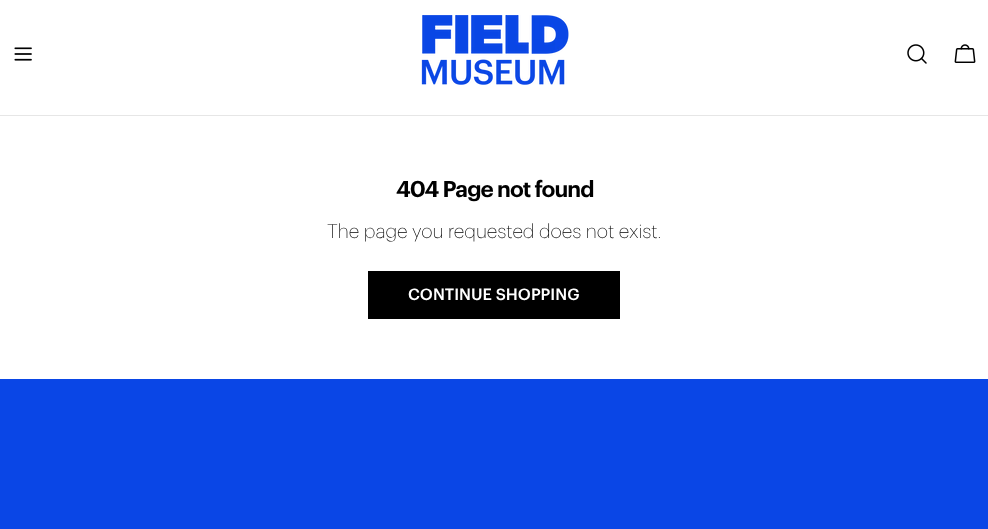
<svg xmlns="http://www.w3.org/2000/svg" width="988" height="529">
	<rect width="100%" height="100%" fill="#FFFFFF" />
	<rect x="0" y="115" width="988" height="1" fill="#E6E6E6" />
	<image x="14" y="47" width="18" height="14" href="assets/img1.png" />
	<image x="421" y="15" width="148" height="70" href="assets/img2.png" />
	<image x="907" y="44" width="20" height="20" href="assets/img3.png" />
	<image x="954" y="44" width="22" height="19" href="assets/img4.png" />
	<text x="396" y="197" font-family="Graphik" font-size="22.5" font-weight="600" letter-spacing="-0.9" fill="#000000">404 Page not found</text>
	<text x="327" y="238" font-family="Graphik" font-size="19.25" font-weight="200" fill="#000000">The page you requested does not exist.</text>
	<rect x="368" y="271" width="252" height="48" fill="#000000" />
	<text x="408" y="300" font-family="Graphik" font-size="16" font-weight="500" fill="#FFFFFF">CONTINUE SHOPPING</text>
	<rect x="0" y="379" width="988" height="150" fill="#0A46E6" />
</svg>
